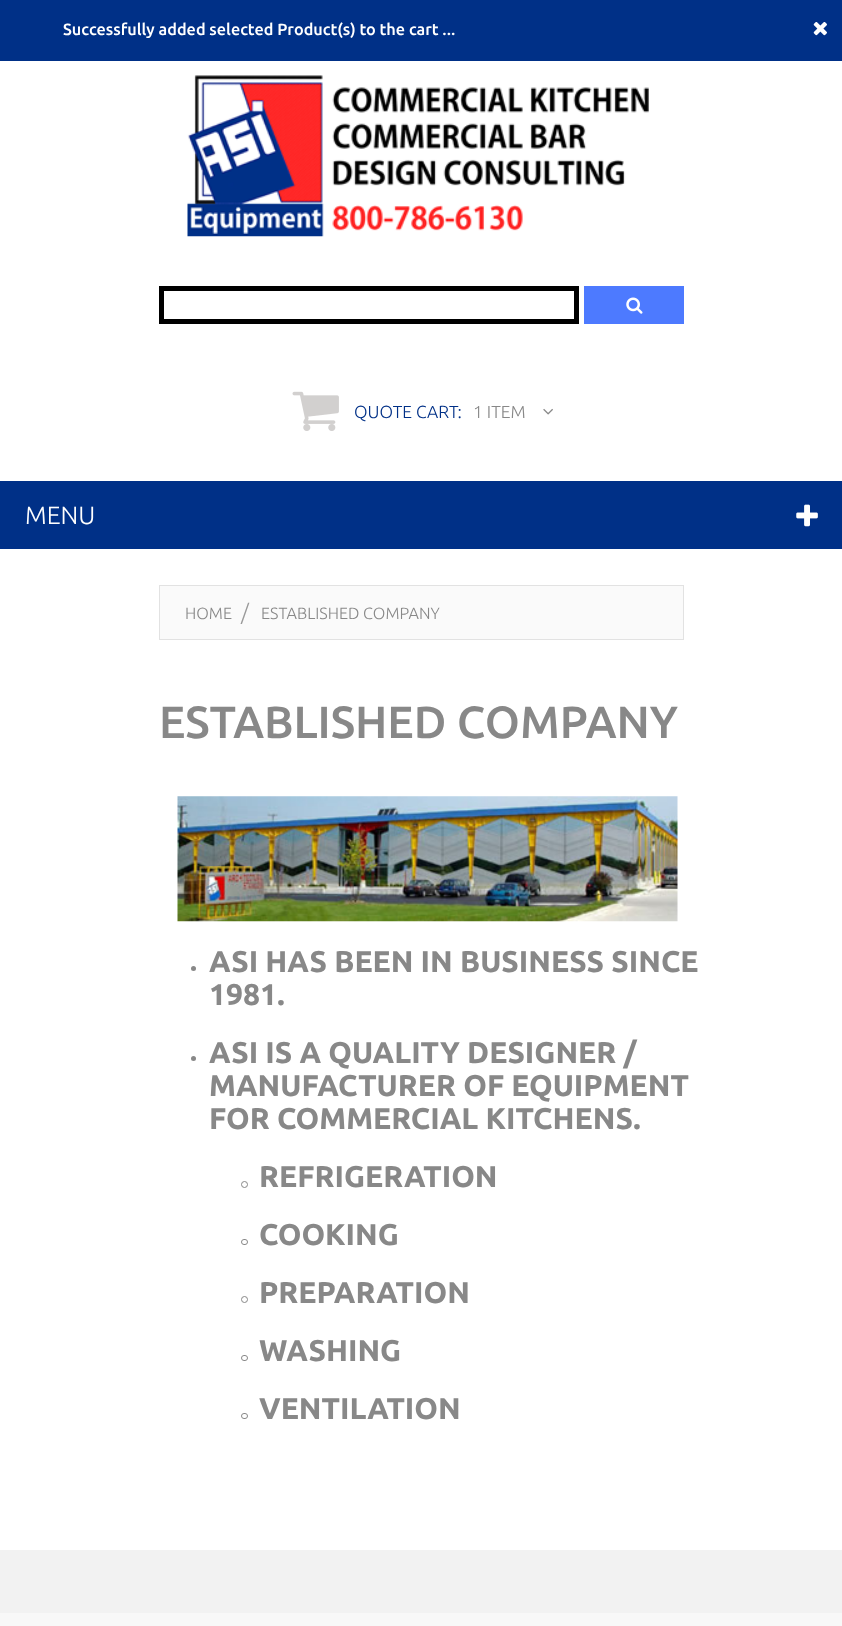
<svg xmlns="http://www.w3.org/2000/svg" width="842" height="1626">
	<rect width="100%" height="100%" fill="#FFFFFF" />
	<rect x="0" y="0" width="842" height="61" fill="#003087" />
	<text x="63" y="35" font-family="Ubuntu" font-size="16.25" font-weight="500" fill="#FFFFFF">Successfully added selected Product(s) to the cart ...</text>
	<image x="813" y="22" width="14" height="14" href="assets/img1.png" />
	<image x="187" y="75" width="462" height="162" href="assets/img2.png" />
	<rect x="161.5" y="288.5" width="415" height="33" fill="none" stroke="#000000" stroke-width="5" />
	<rect x="584" y="286" width="100" height="38" fill="#4D7AFF" />
	<image x="626" y="297" width="17" height="17" href="assets/img3.png" />
	<image x="292" y="391" width="47" height="40" href="assets/img4.png" />
	<text x="354" y="418" font-family="Ubuntu" font-size="17.5" font-weight="300" fill="#003087">QUOTE CART:</text>
	<text x="473" y="418" font-family="Ubuntu" font-size="17.5" font-weight="300" fill="#888888">1 ITEM</text>
	<image x="543" y="408" width="10" height="7" href="assets/img5.png" />
	<rect x="0" y="481" width="842" height="68" fill="#003087" />
	<text x="25" y="524" font-family="Ubuntu" font-size="25" font-weight="300" fill="#FFFFFF">MENU</text>
	<image x="796" y="504" width="22" height="23" href="assets/img6.png" />
	<rect x="159.5" y="585.5" width="524" height="54" fill="#FAFAFA" stroke="#E2E2E2" />
	<text x="185" y="619" font-family="Ubuntu" font-size="16.25" font-weight="300" fill="#888888">HOME</text>
	<text x="241" y="620" font-family="Ubuntu" font-size="22" font-weight="300" fill="#999999">/</text>
	<text x="261" y="619" font-family="Ubuntu" font-size="16.25" font-weight="300" fill="#888888">ESTABLISHED COMPANY</text>
	<text x="159" y="738" font-family="Ubuntu" font-size="45" font-weight="500" fill="#888888">ESTABLISHED COMPANY</text>
	<image x="177" y="796" width="501" height="126" href="assets/img7.png" />
	<circle cx="193.5" cy="968.5" r="2.5" fill="#888888" />
	<g font-family="Ubuntu" font-size="30" font-weight="700" fill="#888888">
		<text x="209" y="972">ASI HAS BEEN IN BUSINESS SINCE</text>
		<text x="209" y="1005">1981.</text>
	</g>
	<circle cx="193.5" cy="1058.5" r="2.5" fill="#888888" />
	<g font-family="Ubuntu" font-size="30" font-weight="700" fill="#888888">
		<text x="209" y="1063">ASI IS A QUALITY DESIGNER /</text>
		<text x="209" y="1096">MANUFACTURER OF EQUIPMENT</text>
		<text x="209" y="1129">FOR COMMERCIAL KITCHENS.</text>
	</g>
	<circle cx="244.5" cy="1184.5" r="3" fill="none" stroke="#888888" />
	<text x="259" y="1187" font-family="Ubuntu" font-size="30" font-weight="700" fill="#888888">REFRIGERATION</text>
	<rect x="241.5" y="1239.5" width="6" height="5" rx="2.5" fill="none" stroke="#888888" />
	<text x="259" y="1245" font-family="Ubuntu" font-size="30" font-weight="700" fill="#888888">COOKING</text>
	<circle cx="244.5" cy="1299.5" r="3" fill="none" stroke="#888888" />
	<text x="259" y="1303" font-family="Ubuntu" font-size="30" font-weight="700" fill="#888888">PREPARATION</text>
	<rect x="241.5" y="1355.5" width="6" height="5" rx="2.5" fill="none" stroke="#888888" />
	<text x="259" y="1361" font-family="Ubuntu" font-size="30" font-weight="700" fill="#888888">WASHING</text>
	<rect x="241.5" y="1413.5" width="6" height="5" rx="2.5" fill="none" stroke="#888888" />
	<text x="259" y="1419" font-family="Ubuntu" font-size="30" font-weight="700" fill="#888888">VENTILATION</text>
	<rect x="0" y="1613" width="842" height="13" fill="#F8F8F8" />
	<rect x="0" y="1550" width="842" height="63" fill="#F2F2F2" />
</svg>
